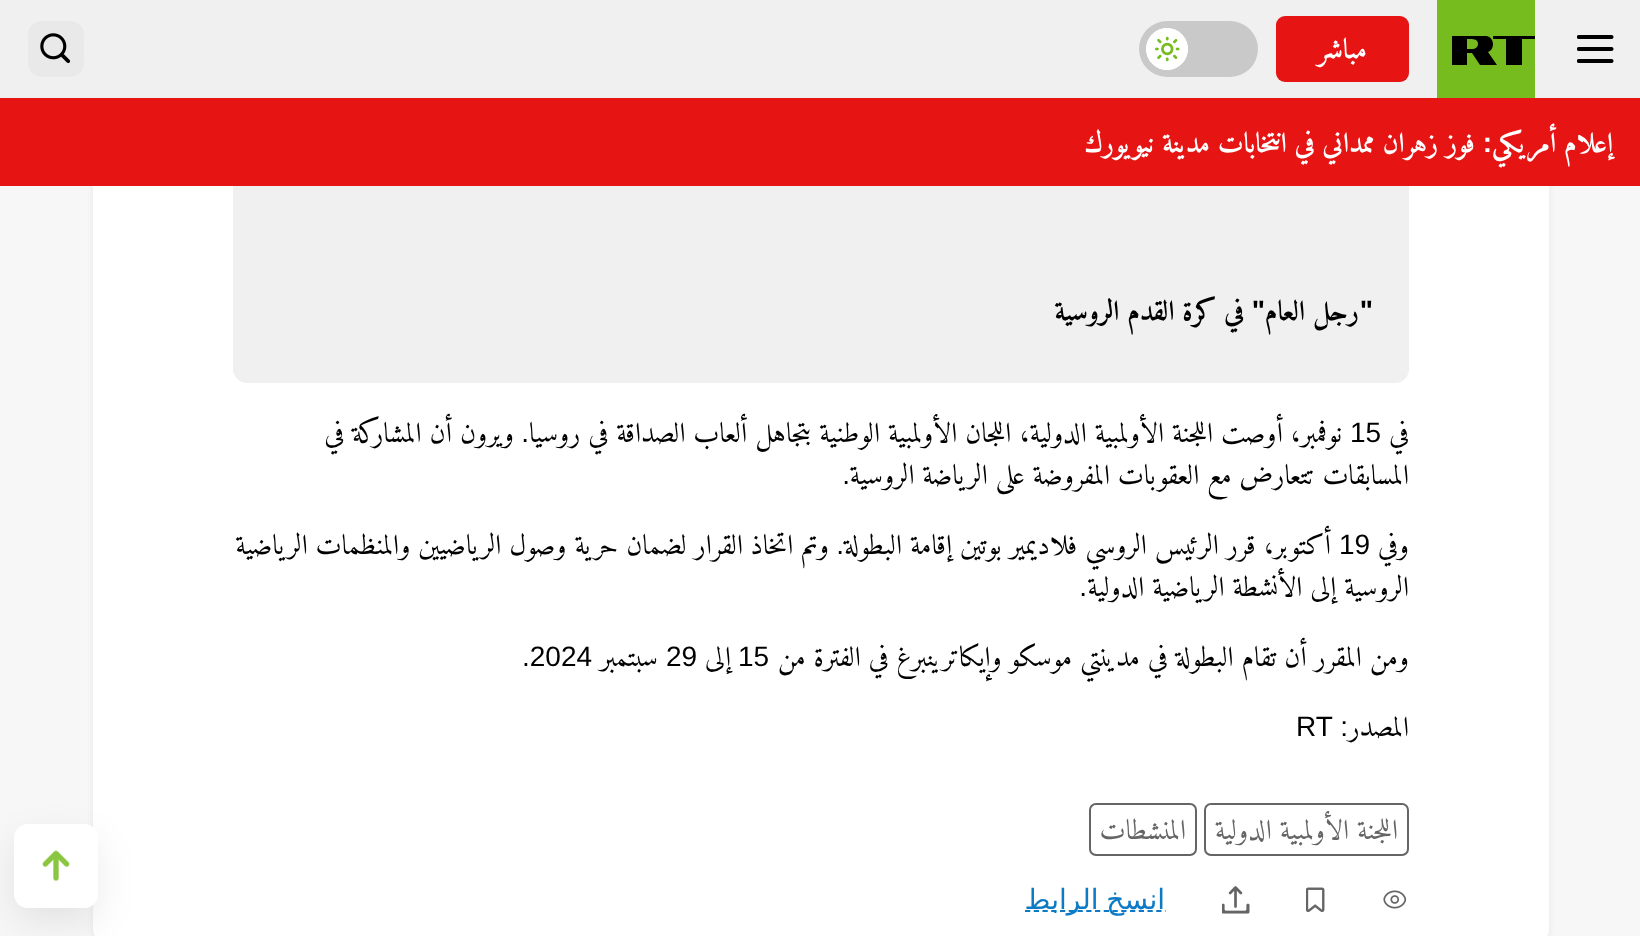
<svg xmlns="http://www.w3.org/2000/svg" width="1640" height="936">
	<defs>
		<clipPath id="clip1"><path d="M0 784H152V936H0ZM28 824H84C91.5 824 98 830.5 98 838V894C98 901.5 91.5 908 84 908H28C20.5 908 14 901.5 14 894V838C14 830.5 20.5 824 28 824Z" clip-rule="evenodd" /></clipPath>
	</defs>
	<rect width="100%" height="100%" fill="#F7F7F7" />
	<rect x="93" y="-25" width="1456" height="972" rx="14" fill="#000000" fill-opacity="0.06" filter="blur(3.5px)" />
	<rect x="93" y="-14" width="1456" height="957" rx="14" fill="#FFFFFF" />
	<rect x="233" y="-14" width="1176" height="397" rx="14" fill="#F0F0F0" />
	<rect x="0" y="0" width="1640" height="98" fill="#F0F0F0" />
	<image x="1577" y="35" width="37" height="28" href="assets/img1.png" />
	<rect x="1437" y="0" width="98" height="98" fill="#77BC1F" />
	<path d="M1493 36V39H1506V65H1522V39H1535V36Z" fill="#000000" fill-rule="evenodd" />
	<path d="M1473 49C1476 49 1478 46 1478 44C1478 38 1471 39 1467 39V49ZM1486 36C1490 36 1493 40 1493 44C1493 48 1491 51 1488 52L1497 65H1480L1472 53H1467V65H1452V36Z" fill="#000000" fill-rule="evenodd" />
	<rect x="1276" y="16" width="133" height="66" rx="9" fill="#E71414" />
	<text x="1367" y="58" font-family="Amiri" font-size="28" font-weight="700" direction="rtl" fill="#FFFFFF">مباشر</text>
	<rect x="1139" y="21" width="119" height="56" rx="28" fill="#C9C9C9" />
	<circle cx="1167" cy="49" r="21" fill="#FFFFFF" />
	<image x="1146" y="28" width="42" height="42" href="assets/img2.png" />
	<rect x="28" y="21" width="56" height="56" rx="14" fill="#E9E9E9" />
	<image x="40" y="33" width="31" height="31" href="assets/img3.png" />
	<rect x="0" y="98" width="1640" height="88" fill="#E71414" />
	<text x="1613" y="152" word-spacing="-0.4" font-family="Amiri" font-size="28" font-weight="700" direction="rtl" fill="#FFFFFF">إعلام أمريكي</text>
	<text x="1492" y="152" font-family="Liberation Sans" font-size="28" font-weight="700" direction="rtl" fill="#FFFFFF">:</text>
	<text x="1475" y="152" word-spacing="-0.4" font-family="Amiri" font-size="28" font-weight="700" direction="rtl" fill="#FFFFFF">فوز زهران ممداني في انتخابات مدينة نيويورك</text>
	<text x="1373" y="320" font-family="Liberation Sans" font-size="28" font-weight="700" direction="rtl" fill="#000000">"</text>
	<text x="1359" y="320" word-spacing="-0.4" font-family="Amiri" font-size="28" font-weight="700" direction="rtl" fill="#000000">رجل العام</text>
	<text x="1265" y="320" font-family="Liberation Sans" font-size="28" font-weight="700" direction="rtl" fill="#000000">"</text>
	<text x="1244" y="320" word-spacing="-0.4" font-family="Amiri" font-size="28" font-weight="700" direction="rtl" fill="#000000">في كرة القدم الروسية</text>
	<text x="1409" y="442" font-family="Amiri" font-size="28" direction="rtl" fill="#000000">في</text>
	<text x="1350" y="442" font-family="Liberation Sans" font-size="28" fill="#000000">15</text>
	<g font-family="Amiri" font-size="28" direction="rtl" fill="#000000">
		<text x="1342" y="442">نوفمبر،</text>
		<text x="1283" y="442" word-spacing="-0.3">أوصت اللجنة الأولمبية الدولية، اللجان الأولمبية الوطنية بتجاهل ألعاب الصداقة في روسيا</text>
	</g>
	<text x="529" y="442" font-family="Liberation Sans" font-size="28" direction="rtl" fill="#000000">.</text>
	<g font-family="Amiri" font-size="28" direction="rtl" fill="#000000">
		<text x="514" y="442" word-spacing="-0.3">ويرون أن المشاركة في</text>
		<text x="1409" y="484" word-spacing="-0.5">المسابقات تتعارض مع العقوبات المفروضة على الرياضة الروسية</text>
	</g>
	<text x="850" y="484" font-family="Liberation Sans" font-size="28" direction="rtl" fill="#000000">.</text>
	<text x="1409" y="554" font-family="Amiri" font-size="28" direction="rtl" fill="#000000">وفي</text>
	<text x="1339" y="554" font-family="Liberation Sans" font-size="28" fill="#000000">19</text>
	<text x="1331" y="554" word-spacing="-0.3" font-family="Amiri" font-size="28" direction="rtl" fill="#000000">أكتوبر، قرر الرئيس الروسي فلاديمير بوتين إقامة البطولة</text>
	<text x="844" y="554" font-family="Liberation Sans" font-size="28" direction="rtl" fill="#000000">.</text>
	<g font-family="Amiri" font-size="28" direction="rtl" fill="#000000">
		<text x="829" y="554" word-spacing="-0.3">وتم اتخاذ</text>
		<text x="743" y="554" word-spacing="-0.3">القرار لضمان حرية وصول الرياضيين والمنظمات الرياضية</text>
		<text x="1409" y="596" word-spacing="-0.4">الروسية إلى الأنشطة الرياضية الدولية</text>
	</g>
	<text x="1087" y="596" font-family="Liberation Sans" font-size="28" direction="rtl" fill="#000000">.</text>
	<text x="1409" y="666" word-spacing="-0.4" font-family="Amiri" font-size="28" direction="rtl" fill="#000000">ومن المقرر أن تقام البطولة في مدينتي موسكو وإيكاترينبرغ في الفترة من</text>
	<text x="738" y="666" font-family="Liberation Sans" font-size="28" fill="#000000">15</text>
	<text x="731" y="666" font-family="Amiri" font-size="28" direction="rtl" fill="#000000">إلى</text>
	<text x="666" y="666" font-family="Liberation Sans" font-size="28" fill="#000000">29</text>
	<text x="658" y="666" font-family="Amiri" font-size="28" direction="rtl" fill="#000000">سبتمبر</text>
	<text x="522" y="666" font-family="Liberation Sans" font-size="28" fill="#000000">.2024</text>
	<text x="1348" y="736" font-family="Liberation Sans" font-size="28" direction="rtl" fill="#000000">:</text>
	<text x="1409" y="736" font-family="Amiri" font-size="28" direction="rtl" fill="#000000">المصدر</text>
	<text x="1296" y="736" font-family="Liberation Sans" font-size="28" fill="#000000">RT</text>
	<rect x="1205" y="804" width="203" height="51" rx="6" fill="none" stroke="#656565" stroke-width="2" />
	<text x="1398" y="839" word-spacing="-0.4" font-family="Amiri" font-size="28" direction="rtl" fill="#656565">اللجنة الأولمبية الدولية</text>
	<rect x="1090" y="804" width="106" height="51" rx="6" fill="none" stroke="#656565" stroke-width="2" />
	<text x="1186" y="839" font-family="Amiri" font-size="28" direction="rtl" fill="#656565">المنشطات</text>
	<image x="1383" y="890" width="24" height="19" href="assets/img4.png" />
	<image x="1306" y="887" width="19" height="26" href="assets/img5.png" />
	<image x="1222" y="886" width="28" height="28" href="assets/img6.png" />
	<path d="M1025 911H1165.5" fill="none" stroke="#0D7AC5" stroke-width="1.8" stroke-dasharray="5.25 3.5" />
	<text x="1165" y="909" word-spacing="-1" font-family="DejaVu Sans" font-size="28" direction="rtl" fill="#0D7AC5">انسخ الرابط</text>
	<g clip-path="url(#clip1)">
		<rect x="14" y="838" width="84" height="84" rx="14" fill="#000000" fill-opacity="0.08" filter="blur(17.5px)" />
	</g>
	<rect x="14" y="824" width="84" height="84" rx="14" fill="#FFFFFF" fill-opacity="0.95" />
	<image x="42" y="850" width="28" height="32" href="assets/img7.png" />
</svg>
